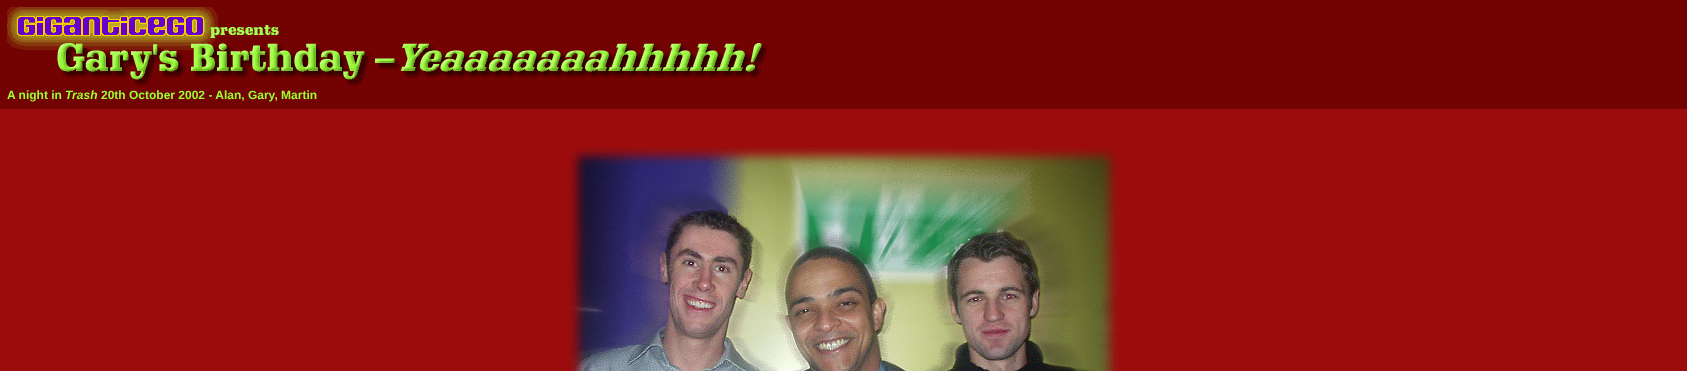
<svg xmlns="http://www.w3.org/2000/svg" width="1687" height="371">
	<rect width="100%" height="100%" fill="#9C0C0C" />
	<rect x="0" y="0" width="1687" height="109" fill="#730202" />
	<image x="7" y="7" width="760" height="79" href="assets/img1.png" />
	<text x="7" y="99" font-family="Liberation Sans" font-size="12" font-weight="700" fill="#99FF33">A night in</text>
	<text x="65" y="99" font-family="Liberation Sans" font-size="12" font-weight="700" font-style="italic" fill="#99FF33">Trash</text>
	<text x="101" y="99" font-family="Liberation Sans" font-size="12" font-weight="700" fill="#99FF33">20th October 2002 - Alan, Gary, Martin</text>
	<image x="568" y="147" width="552" height="224" href="assets/img2.png" />
</svg>
